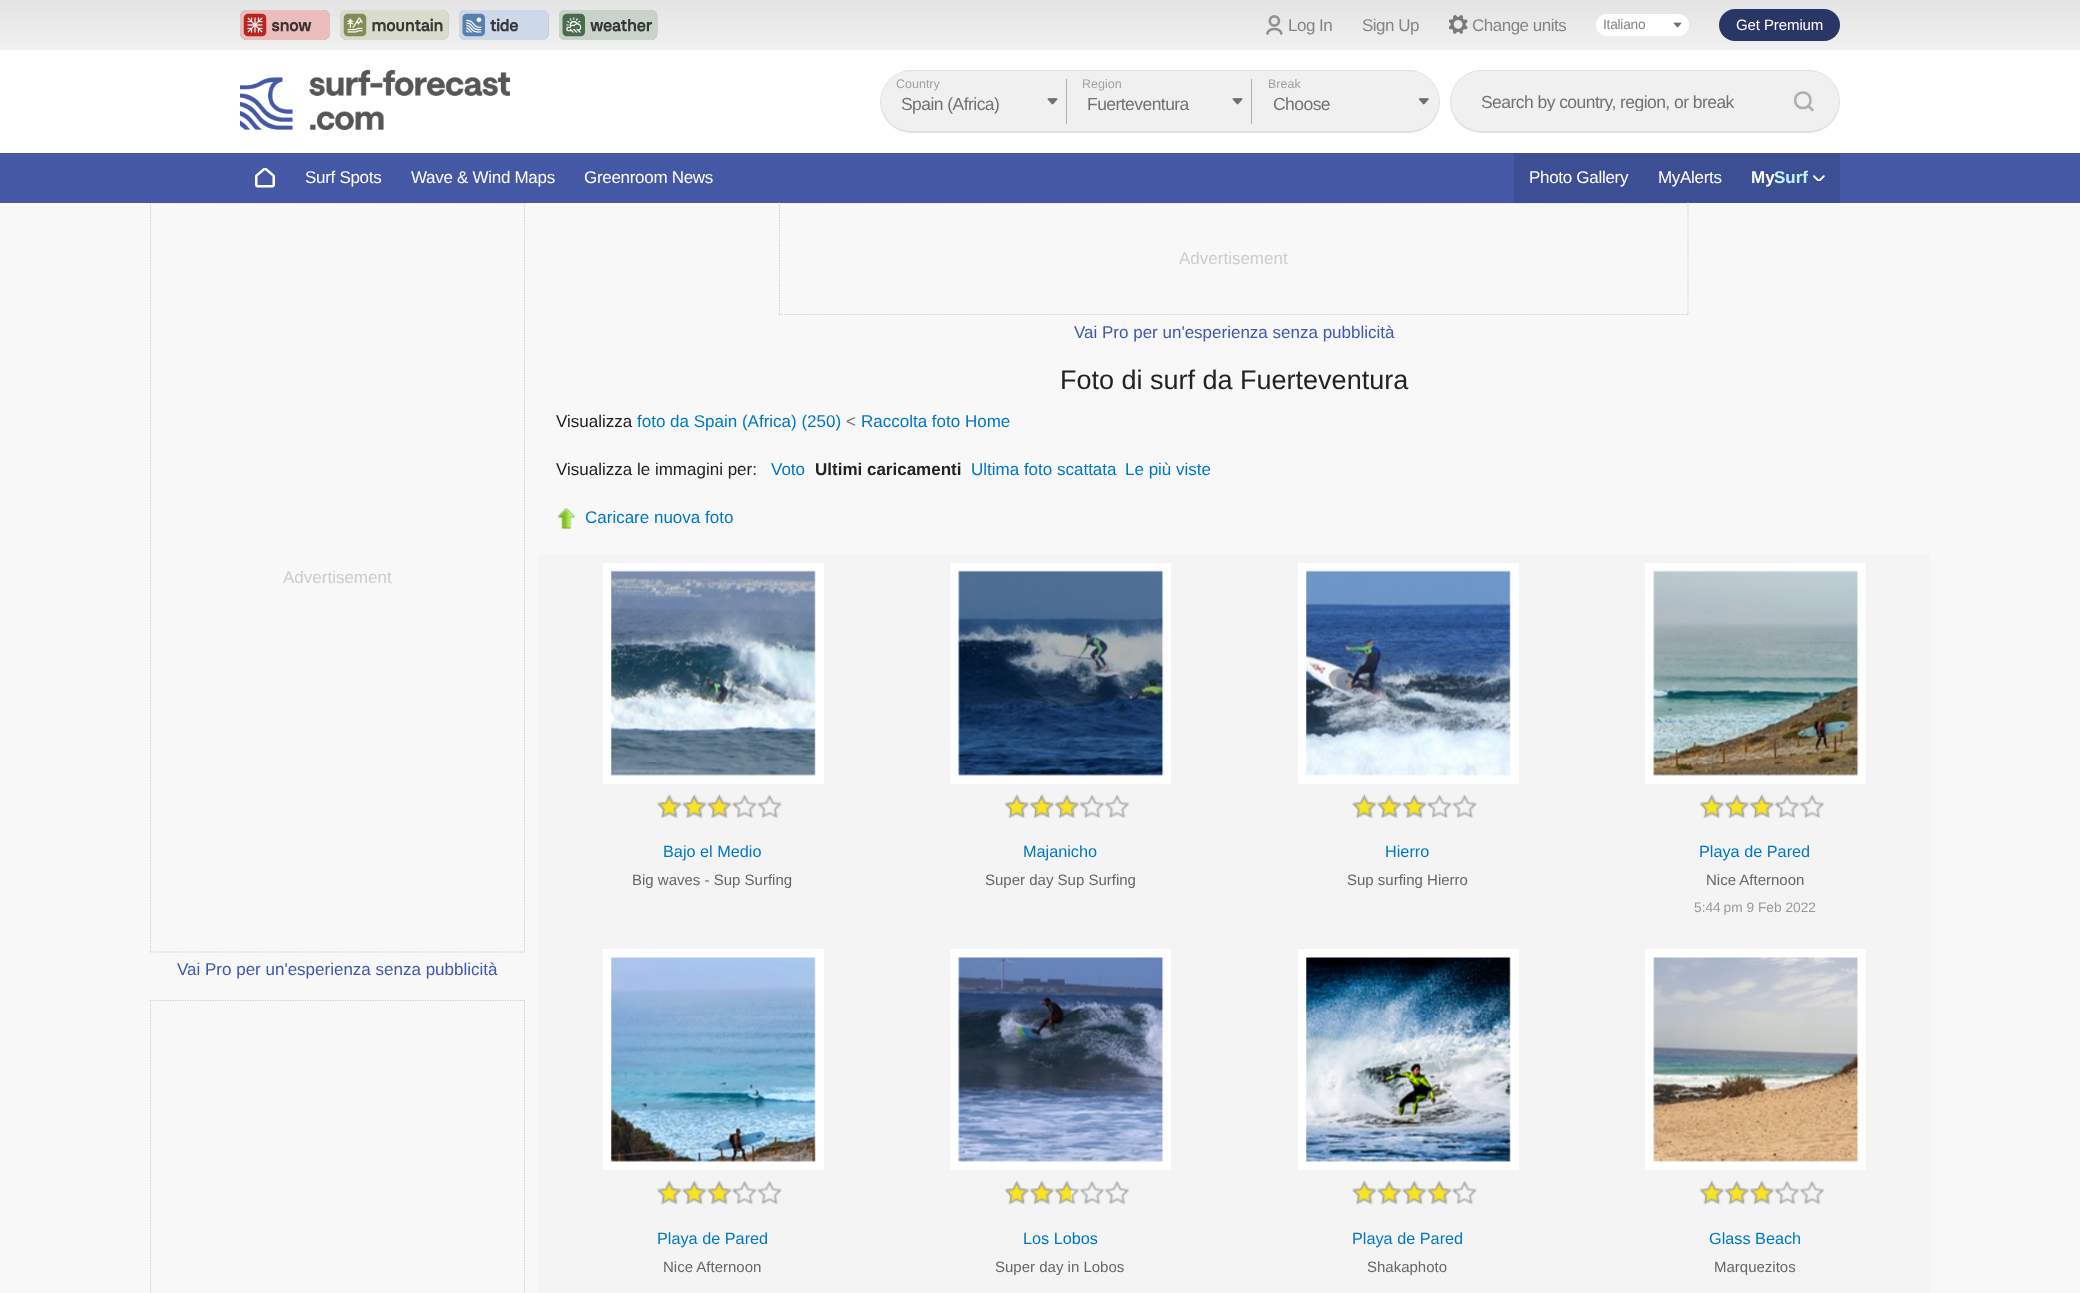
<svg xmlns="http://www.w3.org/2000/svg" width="2080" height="1293">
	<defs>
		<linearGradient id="g1" gradientUnits="userSpaceOnUse" x1="1040" y1="0" x2="1040" y2="50"><stop offset="0" stop-color="#E3E3E3" /><stop offset="1" stop-color="#F1F1F1" /></linearGradient>
		<clipPath id="clip1"><rect x="1481" y="91" width="298" height="20" /></clipPath>
		<clipPath id="clip2"><rect x="150" y="203" width="375" height="750" /></clipPath>
		<clipPath id="clip3"><rect x="150" y="1000" width="375" height="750" /></clipPath>
		<clipPath id="clip4"><rect x="538" y="203" width="1392" height="112" /></clipPath>
	</defs>
	<rect width="100%" height="100%" fill="#F8F8F8" />
	<rect x="0" y="50" width="2080" height="103" fill="#FFFFFF" />
	<rect x="0" y="0" width="2080" height="50" fill="url(#g1)" />
	<image x="240" y="10" width="90" height="30" href="assets/img1.png" />
	<image x="340" y="10" width="109" height="30" href="assets/img2.png" />
	<image x="459" y="10" width="90" height="30" href="assets/img3.png" />
	<image x="559" y="10" width="99" height="30" href="assets/img4.png" />
	<image x="1266" y="15" width="17" height="20" href="assets/img5.png" />
	<g font-family="Liberation Sans" font-size="17" letter-spacing="-0.5" fill="#858585">
		<text x="1288" y="31">Log In</text>
		<text x="1362" y="31">Sign Up</text>
	</g>
	<image x="1449" y="15" width="19" height="19" href="assets/img6.png" />
	<text x="1472" y="31" font-family="Liberation Sans" font-size="17" letter-spacing="-0.5" fill="#858585">Change units</text>
	<rect x="1596" y="14" width="93" height="22" rx="11" fill="#FFFFFF" />
	<image x="1673" y="22" width="9" height="6" href="assets/img7.png" />
	<text x="1603" y="29" font-family="Liberation Sans" font-size="13.75" letter-spacing="-0.25" fill="#858585">Italiano</text>
	<rect x="1719" y="9" width="121" height="32" rx="16" fill="#2A3666" />
	<text x="1736" y="30" font-family="Liberation Sans" font-size="15" letter-spacing="-0.1" fill="#FFFFFF">Get Premium</text>
	<image x="240" y="70" width="270" height="60" href="assets/img8.png" />
	<rect x="880" y="70" width="560" height="63" rx="31.5" fill="#E0E0E0" />
	<path d="M911 71H1068V131H911C894.5 131 881 117.5 881 101C881 84.5 894.5 71 911 71Z" fill="#F0F0F0" />
	<text x="896" y="88" font-family="Liberation Sans" font-size="12.5" fill="#A1A1A1">Country</text>
	<rect x="1066" y="79" width="1" height="45" fill="#B0B0B0" />
	<image x="1047" y="98" width="11" height="7" href="assets/img9.png" />
	<text x="901" y="110" font-family="Liberation Sans" font-size="17.5" letter-spacing="-0.55" fill="#727272">Spain (Africa)</text>
	<rect x="1068" y="71" width="185" height="60" fill="#F0F0F0" />
	<text x="1082" y="88" font-family="Liberation Sans" font-size="12.5" fill="#A1A1A1">Region</text>
	<rect x="1251" y="79" width="1" height="45" fill="#B0B0B0" />
	<image x="1232" y="98" width="11" height="7" href="assets/img9.png" />
	<text x="1087" y="110" font-family="Liberation Sans" font-size="17.5" letter-spacing="-0.55" fill="#727272">Fuerteventura</text>
	<path d="M1253 71H1409C1425.5 71 1439 84.5 1439 101C1439 117.5 1425.5 131 1409 131H1253Z" fill="#F0F0F0" />
	<text x="1268" y="88" font-family="Liberation Sans" font-size="12.5" fill="#A1A1A1">Break</text>
	<image x="1418" y="98" width="11" height="7" href="assets/img10.png" />
	<text x="1273" y="110" font-family="Liberation Sans" font-size="17.5" letter-spacing="-0.55" fill="#727272">Choose</text>
	<rect x="1450" y="70" width="390" height="63" rx="31.5" fill="#E0E0E0" />
	<rect x="1451" y="71" width="388" height="60" rx="30" fill="#F0F0F0" />
	<g clip-path="url(#clip1)">
		<text x="1481" y="108" font-family="Liberation Sans" font-size="17.5" letter-spacing="-0.55" fill="#727272">Search by country, region, or break</text>
	</g>
	<path d="M1803 108C1813 108 1813 92.5 1803 92.5C1792.5 92.5 1792.5 108 1803 108ZM1812.5 110L1808.5 106" fill="none" stroke="#B1ADAD" stroke-width="2.5" stroke-linecap="round" stroke-linejoin="round" />
	<rect x="0" y="153" width="2080" height="50" fill="#4458A5" />
	<image x="255" y="168" width="20" height="20" href="assets/img11.png" />
	<g font-family="Liberation Sans" font-size="17" letter-spacing="-0.3" fill="#FFFFFF">
		<text x="305" y="183">Surf Spots</text>
		<text x="411" y="183">Wave &amp; Wind Maps</text>
		<text x="584" y="183">Greenroom News</text>
	</g>
	<rect x="1514" y="153" width="326" height="50" fill="#3D4F94" />
	<g font-family="Liberation Sans" font-size="17" letter-spacing="-0.3" fill="#FFFFFF">
		<text x="1529" y="183">Photo Gallery</text>
		<text x="1658" y="183">MyAlerts</text>
	</g>
	<text x="1751" y="183" font-family="Liberation Sans" font-size="17" font-weight="700" fill="#FFFFFF">My</text>
	<text x="1774" y="183" font-family="Liberation Sans" font-size="17" font-weight="700" fill="#C0F6FE">Surf</text>
	<image x="1813" y="175" width="12" height="6" href="assets/img12.png" />
	<g clip-path="url(#clip2)">
		<path d="M150 203H525" fill="none" stroke="#CCCCCC" stroke-width="1.2" stroke-dasharray="1.25 1.25" />
		<path d="M524.5 202.5V952.5" fill="none" stroke="#CCCCCC" stroke-width="1.2" stroke-dasharray="1.25 1.25" />
	</g>
	<path d="M150 952H525" fill="none" stroke="#CCCCCC" stroke-width="1.2" stroke-dasharray="1.25 1.25" />
	<g clip-path="url(#clip2)">
		<path d="M150.5 202.5V952.5" fill="none" stroke="#CCCCCC" stroke-width="1.2" stroke-dasharray="1.25 1.25" />
	</g>
	<text x="283" y="583" font-family="Liberation Sans" font-size="17" fill="#CCCCCC">Advertisement</text>
	<text x="177" y="975" font-family="Liberation Sans" font-size="17" fill="#3F59AB">Vai Pro per un'esperienza senza pubblicità</text>
	<g clip-path="url(#clip3)">
		<path d="M150 1000.5H525" fill="none" stroke="#CCCCCC" stroke-width="1.2" stroke-dasharray="1.25 1.25" />
		<path d="M524.5 1000V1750" fill="none" stroke="#CCCCCC" stroke-width="1.2" stroke-dasharray="1.25 1.25" />
		<path d="M150.5 1000V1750" fill="none" stroke="#CCCCCC" stroke-width="1.2" stroke-dasharray="1.25 1.25" />
	</g>
	<g clip-path="url(#clip4)">
		<path d="M779 203H1689" fill="none" stroke="#CCCCCC" stroke-width="1.2" stroke-dasharray="1.25 1.25" />
	</g>
	<path d="M1688 202.5V315" fill="none" stroke="#CCCCCC" stroke-width="1.2" stroke-dasharray="1.25 1.25" />
	<g clip-path="url(#clip4)">
		<path d="M779 314.5H1689" fill="none" stroke="#CCCCCC" stroke-width="1.2" stroke-dasharray="1.25 1.25" />
	</g>
	<path d="M779.5 202.5V315" fill="none" stroke="#CCCCCC" stroke-width="1.2" stroke-dasharray="1.25 1.25" />
	<text x="1179" y="264" font-family="Liberation Sans" font-size="17" fill="#CCCCCC">Advertisement</text>
	<text x="1074" y="338" font-family="Liberation Sans" font-size="17" fill="#3F59AB">Vai Pro per un'esperienza senza pubblicità</text>
	<text x="1060" y="389" font-family="Liberation Sans" font-size="27" fill="#222222">Foto di surf da Fuerteventura</text>
	<text x="556" y="427" font-family="Liberation Sans" font-size="17" fill="#222222">Visualizza</text>
	<text x="637" y="427" font-family="Liberation Sans" font-size="17" fill="#0077C3">foto da Spain (Africa) (250)</text>
	<text x="846" y="427" font-family="Liberation Sans" font-size="17" fill="#727272">&lt;</text>
	<text x="861" y="427" font-family="Liberation Sans" font-size="17" fill="#0077C3">Raccolta foto Home</text>
	<text x="556" y="475" font-family="Liberation Sans" font-size="17" fill="#222222">Visualizza le immagini per:</text>
	<text x="771" y="475" font-family="Liberation Sans" font-size="17" fill="#0077C3">Voto</text>
	<text x="815" y="475" font-family="Liberation Sans" font-size="17" font-weight="700" fill="#222222">Ultimi caricamenti</text>
	<g font-family="Liberation Sans" font-size="17" fill="#0077C3">
		<text x="971" y="475">Ultima foto scattata</text>
		<text x="1125" y="475">Le più viste</text>
	</g>
	<image x="558" y="508" width="17" height="22" href="assets/img13.png" />
	<text x="585" y="523" font-family="Liberation Sans" font-size="17" fill="#0077C3">Caricare nuova foto</text>
	<rect x="538" y="555" width="1392" height="738" fill="#F4F4F4" />
	<rect x="603" y="563" width="221" height="221" fill="#FFFFFF" />
	<image x="611" y="570" width="205" height="206" href="assets/img14.png" />
	<image x="657" y="794" width="125" height="24" href="assets/img15.png" />
	<image x="657" y="794" width="80" height="24" href="assets/img16.png" />
	<text x="663" y="857" font-family="Liberation Sans" font-size="16.25" fill="#0077C3">Bajo el Medio</text>
	<text x="632" y="885" font-family="Liberation Sans" font-size="15" fill="#666666">Big waves - Sup Surfing</text>
	<rect x="950" y="563" width="221" height="221" fill="#FFFFFF" />
	<image x="958" y="570" width="206" height="206" href="assets/img17.png" />
	<image x="1004" y="794" width="126" height="24" href="assets/img18.png" />
	<image x="1004" y="794" width="80" height="24" href="assets/img19.png" />
	<text x="1023" y="857" font-family="Liberation Sans" font-size="16.25" fill="#0077C3">Majanicho</text>
	<text x="985" y="885" font-family="Liberation Sans" font-size="15" fill="#666666">Super day Sup Surfing</text>
	<rect x="1298" y="563" width="221" height="221" fill="#FFFFFF" />
	<image x="1306" y="570" width="205" height="206" href="assets/img20.png" />
	<image x="1352" y="794" width="125" height="24" href="assets/img15.png" />
	<image x="1352" y="794" width="80" height="24" href="assets/img16.png" />
	<text x="1385" y="857" font-family="Liberation Sans" font-size="16.25" fill="#0077C3">Hierro</text>
	<text x="1347" y="885" font-family="Liberation Sans" font-size="15" fill="#666666">Sup surfing Hierro</text>
	<rect x="1645" y="563" width="221" height="221" fill="#FFFFFF" />
	<image x="1653" y="570" width="206" height="206" href="assets/img21.png" />
	<image x="1699" y="794" width="126" height="24" href="assets/img22.png" />
	<image x="1699" y="794" width="80" height="24" href="assets/img23.png" />
	<text x="1699" y="857" font-family="Liberation Sans" font-size="16.25" fill="#0077C3">Playa de Pared</text>
	<text x="1706" y="885" font-family="Liberation Sans" font-size="15" fill="#666666">Nice Afternoon</text>
	<text x="1694" y="912" font-family="Liberation Sans" font-size="13.75" fill="#999999">5:44 pm 9 Feb 2022</text>
	<rect x="603" y="949" width="221" height="221" fill="#FFFFFF" />
	<image x="611" y="957" width="205" height="205" href="assets/img24.png" />
	<image x="657" y="1180" width="125" height="25" href="assets/img25.png" />
	<image x="657" y="1180" width="80" height="24" href="assets/img26.png" />
	<text x="657" y="1244" font-family="Liberation Sans" font-size="16.25" fill="#0077C3">Playa de Pared</text>
	<text x="663" y="1272" font-family="Liberation Sans" font-size="15" fill="#666666">Nice Afternoon</text>
	<rect x="950" y="949" width="221" height="221" fill="#FFFFFF" />
	<image x="958" y="957" width="206" height="205" href="assets/img27.png" />
	<image x="1004" y="1180" width="126" height="25" href="assets/img28.png" />
	<image x="1004" y="1180" width="68" height="24" href="assets/img29.png" />
	<text x="1023" y="1244" font-family="Liberation Sans" font-size="16.25" fill="#0077C3">Los Lobos</text>
	<text x="995" y="1272" font-family="Liberation Sans" font-size="15" fill="#666666">Super day in Lobos</text>
	<rect x="1298" y="949" width="221" height="221" fill="#FFFFFF" />
	<image x="1306" y="957" width="205" height="205" href="assets/img30.png" />
	<image x="1352" y="1180" width="125" height="25" href="assets/img25.png" />
	<image x="1352" y="1180" width="105" height="24" href="assets/img31.png" />
	<text x="1352" y="1244" font-family="Liberation Sans" font-size="16.25" fill="#0077C3">Playa de Pared</text>
	<text x="1367" y="1272" font-family="Liberation Sans" font-size="15" fill="#666666">Shakaphoto</text>
	<rect x="1645" y="949" width="221" height="221" fill="#FFFFFF" />
	<image x="1653" y="957" width="206" height="205" href="assets/img32.png" />
	<image x="1699" y="1180" width="126" height="25" href="assets/img33.png" />
	<image x="1699" y="1180" width="80" height="24" href="assets/img34.png" />
	<text x="1709" y="1244" font-family="Liberation Sans" font-size="16.25" fill="#0077C3">Glass Beach</text>
	<text x="1714" y="1272" font-family="Liberation Sans" font-size="15" fill="#666666">Marquezitos</text>
</svg>
